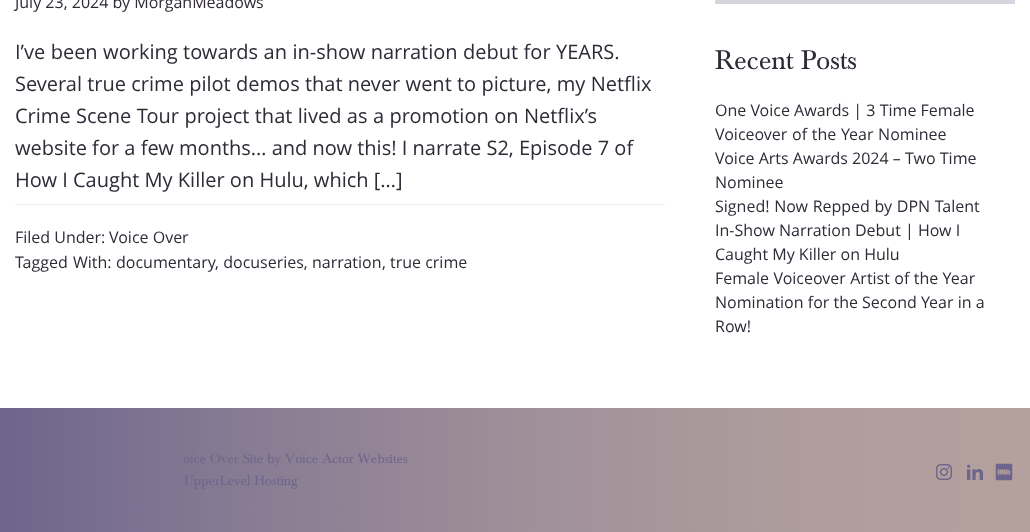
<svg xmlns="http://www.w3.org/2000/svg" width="1030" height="532">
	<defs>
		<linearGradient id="g1" gradientUnits="userSpaceOnUse" x1="0" y1="470" x2="1030" y2="470"><stop offset="0" stop-color="#6E658D" /><stop offset="0.23" stop-color="#877B93" /><stop offset="0.52" stop-color="#A09099" /><stop offset="0.78" stop-color="#AF9D9D" /><stop offset="1" stop-color="#B4A19E" /></linearGradient>
	</defs>
	<rect width="100%" height="100%" fill="#FFFFFF" />
	<text x="15" y="8" font-family="Open Sans" font-size="16" fill="#2F2A36">July 23, 2024 by MorganMeadows</text>
	<g font-family="Open Sans" font-size="20" fill="#2F2A36">
		<text x="15" y="59" word-spacing="0.25">I’ve been working towards an in-show narration debut for YEARS.</text>
		<text x="15" y="91" word-spacing="0.1">Several true crime pilot demos that never went to picture, my Netflix</text>
		<text x="15" y="123" word-spacing="0.25">Crime Scene Tour project that lived as a promotion on Netflix’s</text>
		<text x="15" y="155">website for a few months… and now this! I narrate S2, Episode 7 of</text>
		<text x="15" y="187">How I Caught My Killer on Hulu, which […]</text>
	</g>
	<rect x="15" y="204" width="650" height="1" fill="#EEEEEE" />
	<g font-family="Open Sans" font-size="16" fill="#2F2A36">
		<text x="15" y="243">Filed Under:</text>
		<text x="109" y="243">Voice Over</text>
		<text x="15" y="268" word-spacing="1">Tagged With:</text>
		<text x="116" y="268">documentary, docuseries, narration</text>
		<text x="382" y="268">, true crime</text>
	</g>
	<rect x="715" y="0" width="300" height="4" fill="#D8D4DE" />
	<text x="715" y="69" font-family="Baskerville" font-size="28" fill="#2F2A36">Recent Posts</text>
	<g font-family="Open Sans" font-size="16" fill="#2F2A36">
		<text x="715" y="116">One Voice Awards | 3 Time Female</text>
		<text x="715" y="140" word-spacing="0.5">Voiceover of the Year Nominee</text>
		<text x="715" y="164">Voice Arts Awards 2024 – Two Time</text>
		<text x="715" y="188">Nominee</text>
		<text x="715" y="212" word-spacing="0.5">Signed! Now Repped by DPN Talent</text>
		<text x="715" y="236">In-Show Narration Debut | How I</text>
		<text x="715" y="260">Caught My Killer on Hulu</text>
		<text x="715" y="284" word-spacing="0.25">Female Voiceover Artist of the Year</text>
		<text x="715" y="308">Nomination for the Second Year in a</text>
		<text x="715" y="332">Row!</text>
	</g>
	<rect x="0" y="408" width="1030" height="124" fill="url(#g1)" />
	<g font-family="Baskerville" font-size="14" fill="#6E658D">
		<text x="183" y="463">oice Over Site by Voice Actor Websites</text>
		<text x="184" y="485">UpperLevel Hosting</text>
	</g>
	<image x="936" y="464" width="16" height="16" href="assets/img1.png" />
	<image x="967" y="464" width="16" height="16" href="assets/img2.png" />
	<image x="995" y="463" width="18" height="18" href="assets/img3.png" />
</svg>
